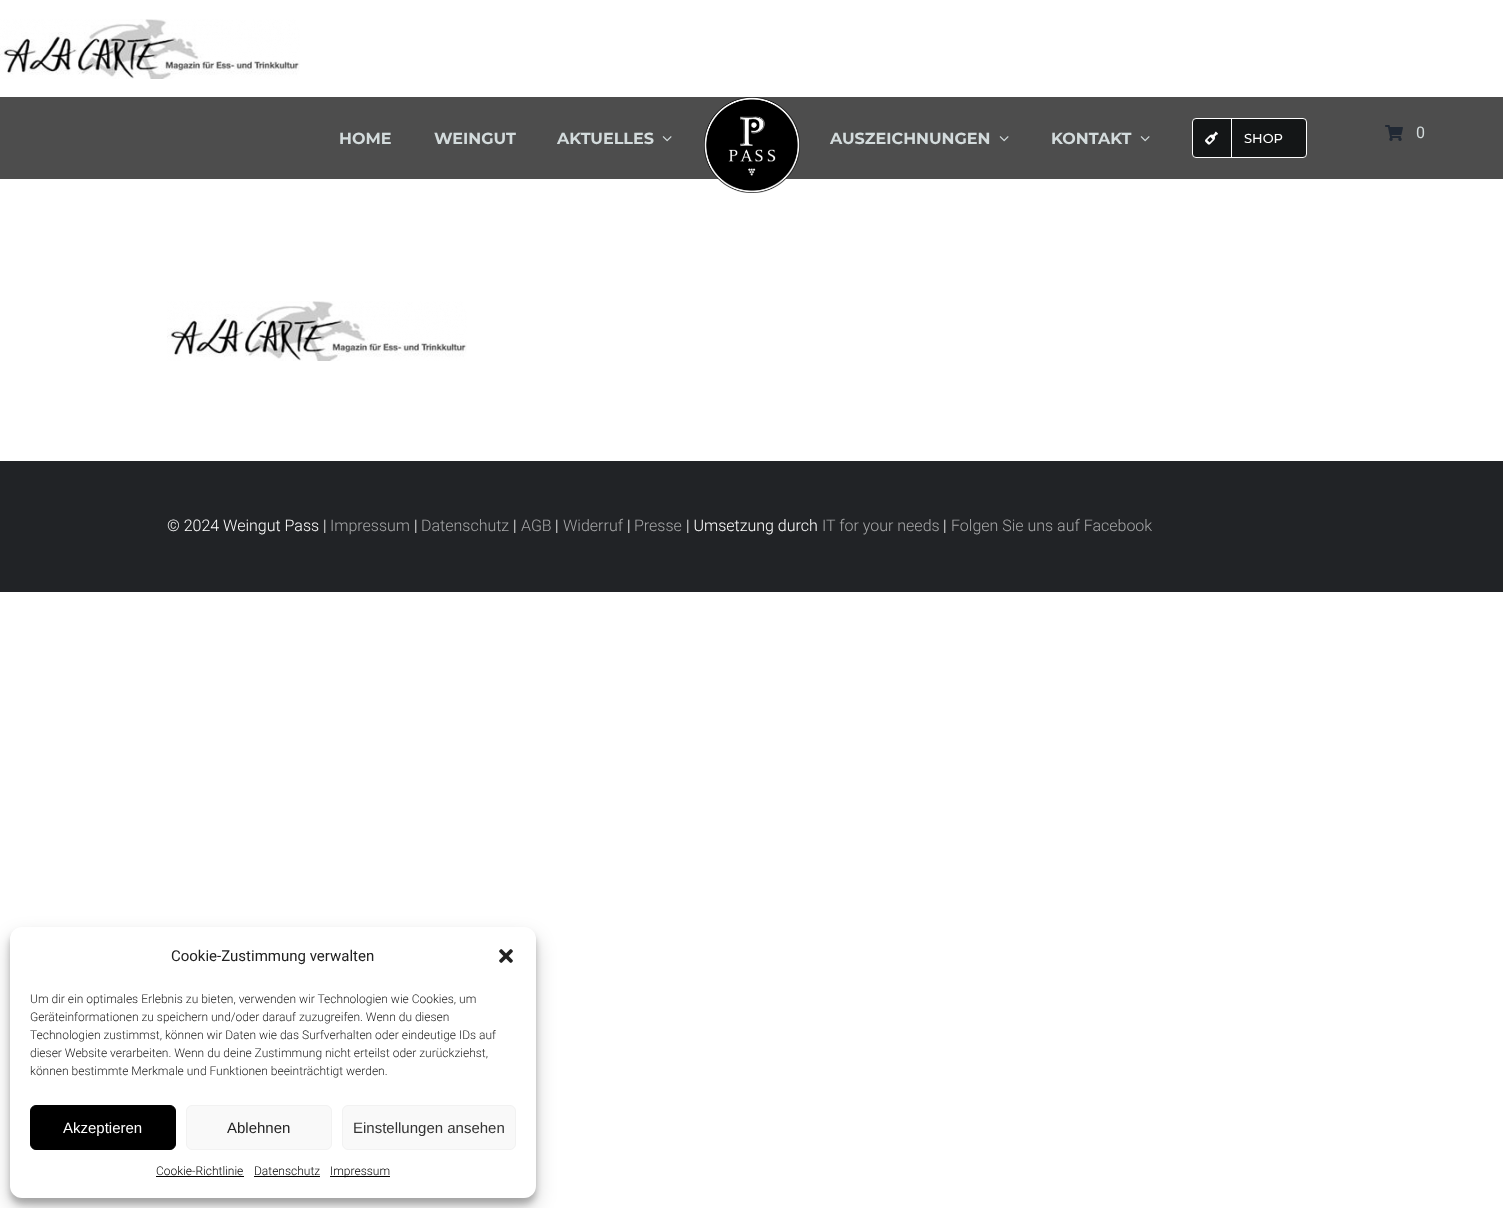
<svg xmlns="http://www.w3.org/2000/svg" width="1503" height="1208">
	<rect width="100%" height="100%" fill="#FFFFFF" />
	<image x="0" y="19" width="300" height="60" href="assets/img1.png" />
	<rect x="0" y="97" width="1503" height="82" fill="#4D4D4D" />
	<g font-family="Montserrat" font-size="16" font-weight="700" fill="#D3DBDC">
		<text x="339" y="144">HOME</text>
		<text x="434" y="144">WEINGUT</text>
		<text x="557" y="144">AKTUELLES</text>
	</g>
	<image x="662" y="136" width="10" height="6" href="assets/img2.png" />
	<image x="704" y="97" width="96" height="96" href="assets/img3.png" />
	<text x="830" y="144" font-family="Montserrat" font-size="16" font-weight="700" fill="#D3DBDC">AUSZEICHNUNGEN</text>
	<image x="999" y="136" width="10" height="6" href="assets/img2.png" />
	<text x="1051" y="144" font-family="Montserrat" font-size="16" font-weight="700" fill="#D3DBDC">KONTAKT</text>
	<image x="1140" y="136" width="10" height="6" href="assets/img2.png" />
	<rect x="1192.5" y="118.5" width="114" height="39" rx="3.5" fill="#141617" stroke="#FFFFFF" />
	<rect x="1231" y="119" width="1" height="38" fill="#FFFFFF" />
	<image x="1205" y="131" width="13" height="14" href="assets/img4.png" />
	<text x="1244" y="143" font-family="Montserrat" font-size="13" font-weight="500" fill="#FFFFFF">SHOP</text>
	<image x="1385" y="125" width="18" height="16" href="assets/img5.png" />
	<text x="1416" y="138" font-family="Roboto" font-size="16" fill="#D3DBDC">0</text>
	<image x="167" y="301" width="300" height="60" href="assets/img1.png" />
	<rect x="0" y="461" width="1503" height="131" fill="#212326" />
	<text x="167" y="531" font-family="Roboto" font-size="16" font-weight="300" fill="#FFFFFF">© 2024 Weingut Pass |</text>
	<text x="330" y="531" font-family="Roboto" font-size="16" font-weight="300" fill="#A6A7A8">Impressum</text>
	<text x="414" y="531" font-family="Roboto" font-size="16" font-weight="300" fill="#FFFFFF">|</text>
	<text x="421" y="531" font-family="Roboto" font-size="16" font-weight="300" fill="#A6A7A8">Datenschutz</text>
	<text x="513" y="531" font-family="Roboto" font-size="16" font-weight="300" fill="#FFFFFF">|</text>
	<text x="521" y="531" font-family="Roboto" font-size="16" font-weight="300" fill="#A6A7A8">AGB</text>
	<text x="555" y="531" font-family="Roboto" font-size="16" font-weight="300" fill="#FFFFFF">|</text>
	<text x="563" y="531" font-family="Roboto" font-size="16" font-weight="300" fill="#A6A7A8">Widerruf</text>
	<text x="627" y="531" font-family="Roboto" font-size="16" font-weight="300" fill="#FFFFFF">|</text>
	<text x="634" y="531" font-family="Roboto" font-size="16" font-weight="300" fill="#A6A7A8">Presse</text>
	<text x="686" y="531" font-family="Roboto" font-size="16" font-weight="300" fill="#FFFFFF">| Umsetzung durch</text>
	<text x="822" y="531" font-family="Roboto" font-size="16" font-weight="300" fill="#A6A7A8">IT for your needs</text>
	<text x="943" y="531" font-family="Roboto" font-size="16" font-weight="300" fill="#FFFFFF">|</text>
	<text x="951" y="531" font-family="Roboto" font-size="16" font-weight="300" fill="#A6A7A8">Folgen Sie uns auf Facebook</text>
	<rect x="10" y="933" width="526" height="271" rx="12" fill="#000000" fill-opacity="0.23" filter="blur(3px)" />
	<rect x="10" y="937" width="526" height="271" rx="12" fill="#000000" fill-opacity="0.19" filter="blur(10px)" />
	<rect x="10" y="927" width="526" height="271" rx="12" fill="#FFFFFF" />
	<text x="171" y="961" font-family="Roboto" font-size="15" fill="#222222">Cookie-Zustimmung verwalten</text>
	<image x="499" y="949" width="14" height="14" href="assets/img6.png" />
	<g font-family="Roboto" font-size="12" font-weight="300" fill="#222222">
		<text x="30" y="1003">Um dir ein optimales Erlebnis zu bieten, verwenden wir Technologien wie Cookies, um</text>
		<text x="30" y="1021">Geräteinformationen zu speichern und/oder darauf zuzugreifen. Wenn du diesen</text>
		<text x="30" y="1039">Technologien zustimmst, können wir Daten wie das Surfverhalten oder eindeutige IDs auf</text>
		<text x="30" y="1057">dieser Website verarbeiten. Wenn du deine Zustimmung nicht erteilst oder zurückziehst,</text>
		<text x="30" y="1075">können bestimmte Merkmale und Funktionen beeinträchtigt werden.</text>
	</g>
	<rect x="30.5" y="1105.5" width="145" height="44" rx="5.5" fill="#000000" stroke="#000000" />
	<text x="63" y="1133" font-family="Liberation Sans" font-size="15" fill="#FFFFFF">Akzeptieren</text>
	<rect x="186.5" y="1105.5" width="145" height="44" rx="5.5" fill="#F9F9F9" stroke="#F2F2F2" />
	<text x="227" y="1133" font-family="Liberation Sans" font-size="15" fill="#222222">Ablehnen</text>
	<rect x="342.5" y="1105.5" width="173" height="44" rx="5.5" fill="#F9F9F9" stroke="#F2F2F2" />
	<text x="353" y="1133" font-family="Liberation Sans" font-size="15" fill="#333333">Einstellungen ansehen</text>
	<text x="156" y="1175" font-family="Roboto" font-size="12" font-weight="300" fill="#000000">Cookie-Richtlinie</text>
	<rect x="156" y="1176" width="88" height="1" fill="#000000" />
	<text x="254" y="1175" font-family="Roboto" font-size="12" font-weight="300" fill="#000000">Datenschutz</text>
	<rect x="254" y="1176" width="66" height="1" fill="#000000" />
	<rect x="330" y="1176" width="60" height="1" fill="#000000" />
	<text x="330" y="1175" font-family="Roboto" font-size="12" font-weight="300" fill="#000000">Impressum</text>
</svg>
